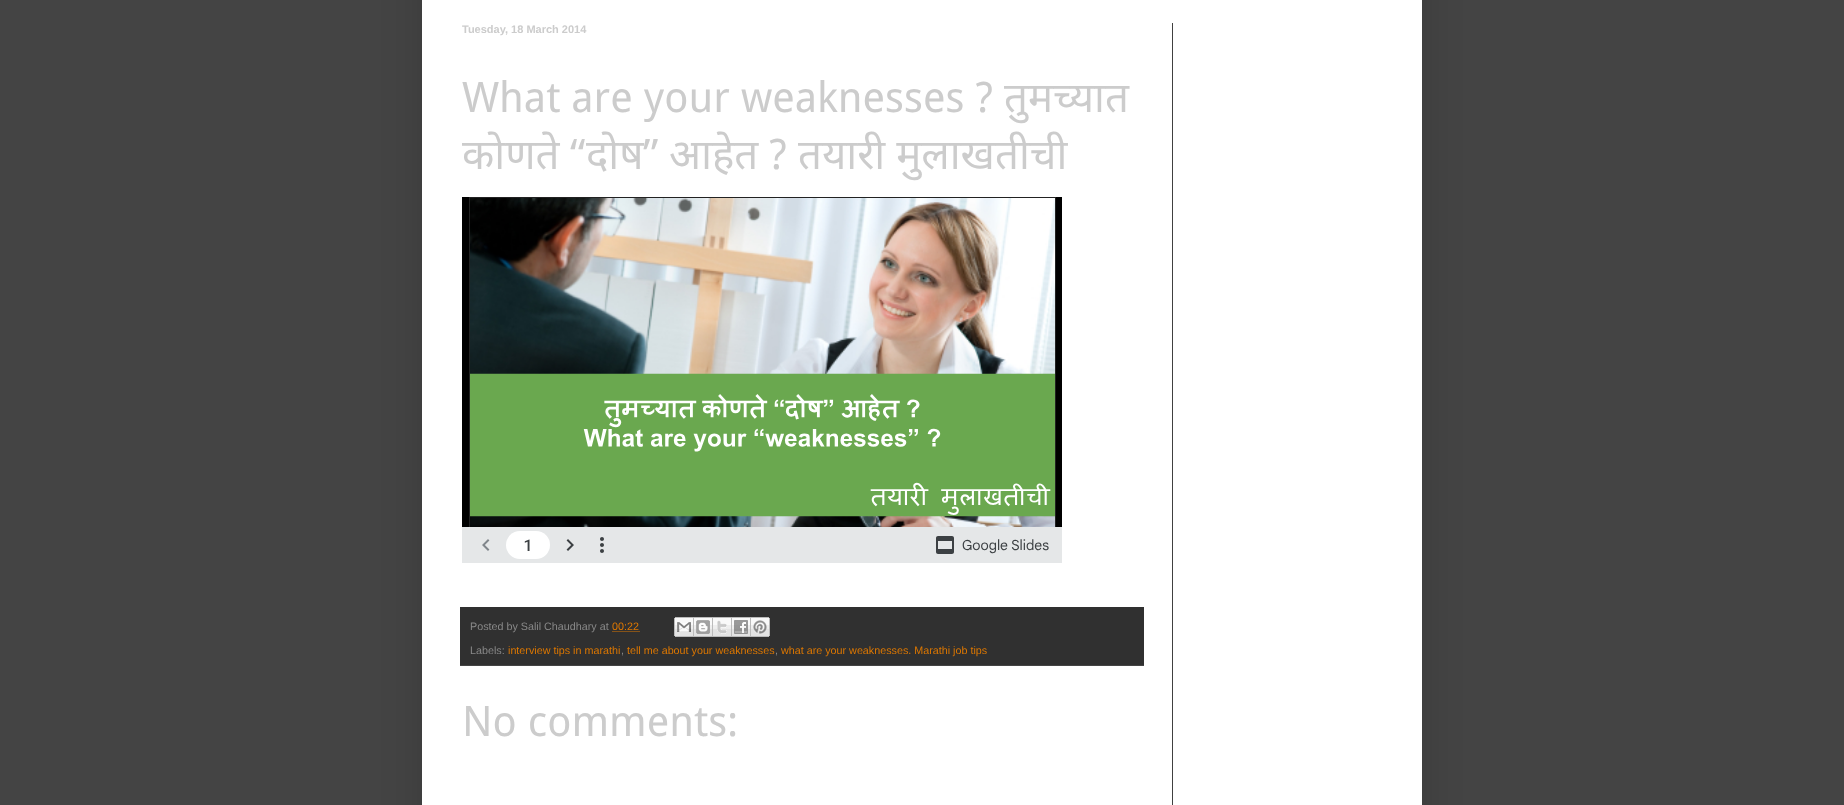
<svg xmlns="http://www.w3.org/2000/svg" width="1844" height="805">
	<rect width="100%" height="100%" fill="#444444" />
	<rect x="422" y="-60" width="1000" height="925" fill="#000000" fill-opacity="0.15" filter="blur(20px)" />
	<rect x="422" y="0" width="1000" height="805" fill="#FFFFFF" />
	<text x="462" y="33" font-family="Liberation Sans" font-size="11" font-weight="700" fill="#CCCCCC">Tuesday, 18 March 2014</text>
	<text x="462" y="112" font-family="Droid Sans" font-size="42" fill="#CCCCCC">What are your weaknesses ?</text>
	<g font-family="Noto Sans" font-size="42" fill="#CCCCCC">
		<text x="1004" y="112">तुमच्यात</text>
		<text x="462" y="169">कोणते</text>
	</g>
	<text x="570" y="169" font-family="Droid Sans" font-size="42" fill="#CCCCCC">“</text>
	<g font-family="Noto Sans" font-size="42" fill="#CCCCCC">
		<text x="586" y="169">दोष</text>
		<text x="669" y="169">आहेत</text>
	</g>
	<text x="769" y="169" font-family="Droid Sans" font-size="42" fill="#CCCCCC">?</text>
	<text x="798" y="169" font-family="Noto Sans" font-size="42" fill="#CCCCCC">तयारी मुलाखतीची</text>
	<text x="643" y="169" font-family="Droid Sans" font-size="42" fill="#CCCCCC">”</text>
	<image x="462" y="197" width="600" height="366" href="assets/img1.png" />
	<rect x="460" y="607" width="684" height="58" fill="#303030" />
	<rect x="460" y="665" width="684" height="1" fill="#444444" />
	<text x="470" y="630" font-family="Liberation Sans" font-size="10.75" fill="#888888">Posted by Salil Chaudhary at</text>
	<text x="612" y="630" font-family="Liberation Sans" font-size="10.75" fill="#DD7700">00:22</text>
	<path d="M612.5 631.5H639.5" fill="none" stroke="#DD7700" stroke-dasharray="1 1" />
	<image x="674" y="617" width="20" height="20" href="assets/img2.png" />
	<image x="694" y="617" width="19" height="20" href="assets/img3.png" />
	<image x="713" y="617" width="19" height="20" href="assets/img4.png" />
	<image x="732" y="617" width="19" height="20" href="assets/img5.png" />
	<image x="751" y="617" width="19" height="20" href="assets/img6.png" />
	<text x="470" y="654" font-family="Liberation Sans" font-size="10.75" fill="#888888">Labels:</text>
	<text x="508" y="654" font-family="Liberation Sans" font-size="10.75" fill="#DD7700">interview tips in marathi</text>
	<text x="621" y="654" font-family="Liberation Sans" font-size="10.75" fill="#888888">,</text>
	<text x="627" y="654" font-family="Liberation Sans" font-size="10.75" fill="#DD7700">tell me about your weaknesses</text>
	<text x="775" y="654" font-family="Liberation Sans" font-size="10.75" fill="#888888">,</text>
	<text x="781" y="654" font-family="Liberation Sans" font-size="10.75" fill="#DD7700">what are your weaknesses. Marathi job tips</text>
	<text x="462" y="736" font-family="Droid Sans" font-size="42" fill="#CCCCCC">No comments:</text>
	<rect x="1172" y="23" width="1" height="782" fill="#404040" />
</svg>
